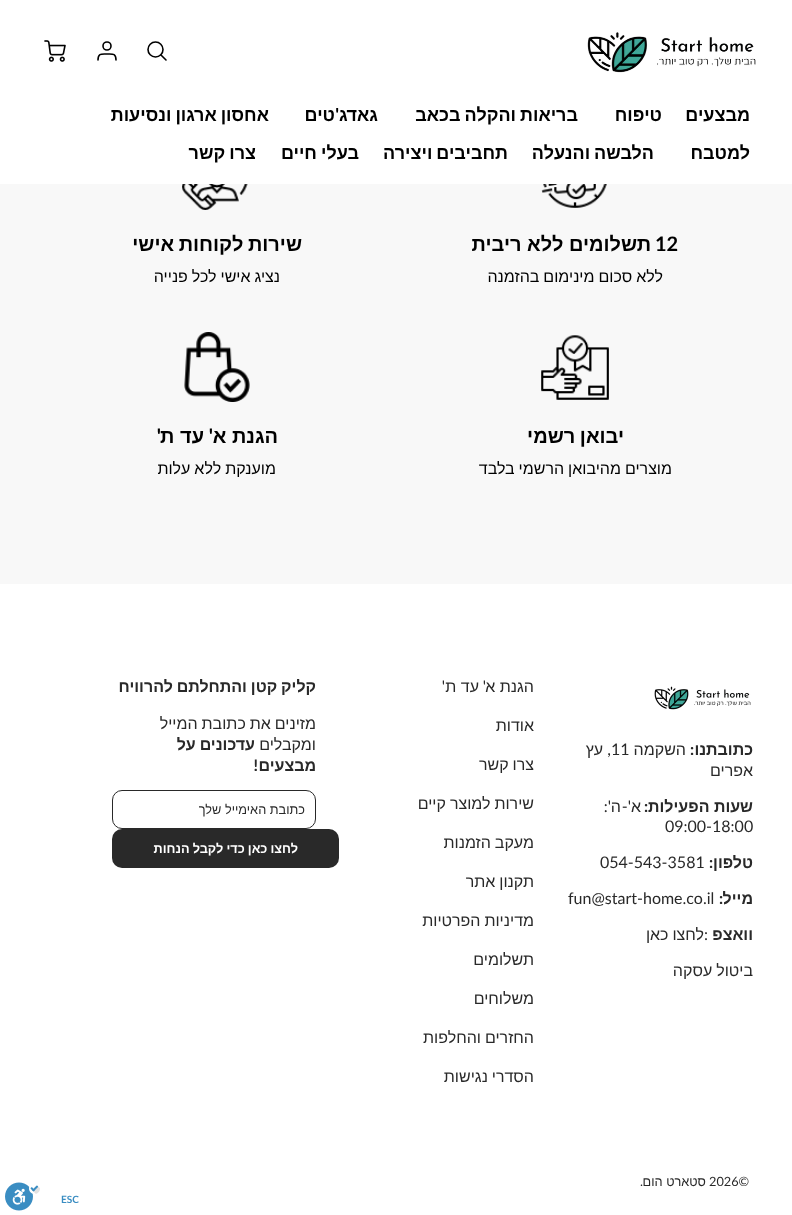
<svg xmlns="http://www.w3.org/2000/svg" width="792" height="1215">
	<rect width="100%" height="100%" fill="#F8F8F8" />
	<rect x="0" y="0" width="792" height="184" fill="#FFFFFF" />
	<image x="587" y="32" width="169" height="41" href="assets/img1.png" />
	<circle cx="155.5" cy="49.5" r="7.5" fill="none" stroke="#000000" stroke-width="1.6" />
	<path d="M166 60L161 55" fill="none" stroke="#000000" stroke-width="1.6" stroke-linecap="round" stroke-linejoin="round" />
	<circle cx="107" cy="46" r="4" fill="none" stroke="#000000" stroke-width="1.6" />
	<path d="M116 60C116 53 112.5 54 107 54C101.5 54 98 53 98 60" fill="none" stroke="#000000" stroke-width="1.6" stroke-linecap="round" stroke-linejoin="round" />
	<image x="44" y="40" width="22" height="22" href="assets/img2.png" />
	<g font-family="Liberation Sans" font-size="18" font-weight="700" direction="rtl" fill="#000000">
		<text x="750" y="121">מבצעים</text>
		<text x="662" y="121">טיפוח</text>
		<text x="578" y="121" word-spacing="-1">בריאות והקלה בכאב</text>
		<text x="378" y="121">גאדג</text>
	</g>
	<text x="339" y="121" font-family="Lato" font-size="18" font-weight="700" direction="rtl" fill="#000000">'</text>
	<g font-family="Liberation Sans" font-size="18" font-weight="700" direction="rtl" fill="#000000">
		<text x="335" y="121">טים</text>
		<text x="269" y="121" word-spacing="-1">אחסון ארגון ונסיעות</text>
		<text x="750" y="159">למטבח</text>
		<text x="654" y="159" word-spacing="-1">הלבשה והנעלה</text>
		<text x="508" y="159" word-spacing="-1">תחביבים ויצירה</text>
		<text x="359" y="159" word-spacing="-1">בעלי חיים</text>
		<text x="256" y="159" word-spacing="-1">צרו קשר</text>
	</g>
	<image x="541" y="184" width="66" height="24" href="assets/img3.png" />
	<text x="655" y="251" font-family="Lato" font-size="20" font-weight="700" fill="#000000">12</text>
	<text x="651" y="251" font-family="Liberation Sans" font-size="20" font-weight="700" direction="rtl" fill="#000000">תשלומים ללא ריבית</text>
	<text x="663" y="282" word-spacing="-0.5" font-family="Liberation Sans" font-size="16" direction="rtl" fill="#000000">ללא סכום מינימום בהזמנה</text>
	<image x="182" y="184" width="66" height="26" href="assets/img4.png" />
	<text x="302" y="251" word-spacing="-1" font-family="Liberation Sans" font-size="20" font-weight="700" direction="rtl" fill="#000000">שירות לקוחות אישי</text>
	<text x="280" y="282" word-spacing="-0.5" font-family="Liberation Sans" font-size="16" direction="rtl" fill="#000000">נציג אישי לכל פנייה</text>
	<image x="541" y="335" width="68" height="65" href="assets/img5.png" />
	<text x="624" y="443" word-spacing="-1" font-family="Liberation Sans" font-size="20" font-weight="700" direction="rtl" fill="#000000">יבואן רשמי</text>
	<text x="672" y="474" word-spacing="-0.5" font-family="Liberation Sans" font-size="16" direction="rtl" fill="#000000">מוצרים מהיבואן הרשמי בלבד</text>
	<image x="184" y="332" width="66" height="70" href="assets/img6.png" />
	<text x="278" y="443" font-family="Liberation Sans" font-size="20" font-weight="700" direction="rtl" fill="#000000">הגנת א</text>
	<text x="213" y="443" font-family="Lato" font-size="20" font-weight="700" direction="rtl" fill="#000000">'</text>
	<text x="204" y="443" font-family="Liberation Sans" font-size="20" font-weight="700" direction="rtl" fill="#000000">עד ת</text>
	<text x="161" y="443" font-family="Lato" font-size="20" font-weight="700" direction="rtl" fill="#000000">'</text>
	<text x="276" y="474" word-spacing="-0.5" font-family="Liberation Sans" font-size="16" direction="rtl" fill="#000000">מוענקת ללא עלות</text>
	<rect x="0" y="584" width="792" height="631" fill="#FFFFFF" />
	<image x="654" y="686" width="97" height="24" href="assets/img7.png" />
	<text x="753" y="755" font-family="Liberation Sans" font-size="16" font-weight="700" direction="rtl" fill="#292929">כתובתנו</text>
	<text x="694" y="755" font-family="Lato" font-size="16" font-weight="700" direction="rtl" fill="#292929">:</text>
	<text x="686" y="755" font-family="Liberation Sans" font-size="16" direction="rtl" fill="#292929">השקמה</text>
	<text x="611" y="755" font-family="Lato" font-size="16" fill="#292929">11</text>
	<text x="611" y="755" font-family="Lato" font-size="16" direction="rtl" fill="#292929">,</text>
	<g font-family="Liberation Sans" font-size="16" direction="rtl" fill="#292929">
		<text x="603" y="755">עץ</text>
		<text x="753" y="776">אפרים</text>
	</g>
	<text x="753" y="812" font-family="Liberation Sans" font-size="16" font-weight="700" direction="rtl" fill="#292929">שעות הפעילות</text>
	<text x="648" y="812" font-family="Lato" font-size="16" font-weight="700" direction="rtl" fill="#292929">:</text>
	<text x="641" y="812" font-family="Liberation Sans" font-size="16" direction="rtl" fill="#292929">א</text>
	<text x="631" y="812" font-family="Lato" font-size="16" direction="rtl" fill="#292929">'-</text>
	<text x="621" y="812" font-family="Liberation Sans" font-size="16" direction="rtl" fill="#292929">ה</text>
	<text x="611" y="812" font-family="Lato" font-size="16" direction="rtl" fill="#292929">':</text>
	<text x="665" y="832" font-family="Lato" font-size="16" fill="#292929">09:00-18:00</text>
	<text x="753" y="868" font-family="Liberation Sans" font-size="16" font-weight="700" direction="rtl" fill="#292929">טלפון</text>
	<text x="713" y="868" font-family="Lato" font-size="16" font-weight="700" direction="rtl" fill="#292929">:</text>
	<text x="600" y="868" font-family="Lato" font-size="16" fill="#292929">054-543-3581</text>
	<text x="753" y="904" font-family="Liberation Sans" font-size="16" font-weight="700" direction="rtl" fill="#292929">מייל</text>
	<text x="723" y="904" font-family="Lato" font-size="16" font-weight="700" direction="rtl" fill="#292929">:</text>
	<text x="568" y="904" font-family="Lato" font-size="16" fill="#292929">fun@start-home.co.il</text>
	<text x="753" y="940" font-family="Liberation Sans" font-size="16" font-weight="700" direction="rtl" fill="#292929">וואצפ</text>
	<text x="704" y="940" font-family="Lato" font-size="16" fill="#292929">:</text>
	<g font-family="Liberation Sans" font-size="16" direction="rtl" fill="#292929">
		<text x="704" y="940" word-spacing="-0.5">לחצו כאן</text>
		<text x="753" y="976" word-spacing="-0.5">ביטול עסקה</text>
		<text x="534" y="692">הגנת א</text>
	</g>
	<text x="486" y="692" font-family="Lato" font-size="16" direction="rtl" fill="#292929">'</text>
	<text x="479" y="692" font-family="Liberation Sans" font-size="16" direction="rtl" fill="#292929">עד ת</text>
	<text x="445" y="692" font-family="Lato" font-size="16" direction="rtl" fill="#292929">'</text>
	<g font-family="Liberation Sans" font-size="16" direction="rtl" fill="#292929">
		<text x="534" y="731">אודות</text>
		<text x="534" y="770" word-spacing="-0.5">צרו קשר</text>
		<text x="534" y="809" word-spacing="-0.5">שירות למוצר קיים</text>
		<text x="534" y="848" word-spacing="-0.5">מעקב הזמנות</text>
		<text x="534" y="887" word-spacing="-0.5">תקנון אתר</text>
		<text x="534" y="926" word-spacing="-0.5">מדיניות הפרטיות</text>
		<text x="534" y="965">תשלומים</text>
		<text x="534" y="1004">משלוחים</text>
		<text x="534" y="1043" word-spacing="-0.5">החזרים והחלפות</text>
		<text x="534" y="1082" word-spacing="-0.5">הסדרי נגישות</text>
	</g>
	<text x="316" y="692" word-spacing="-0.5" font-family="Liberation Sans" font-size="16" font-weight="700" direction="rtl" fill="#292929">קליק קטן והתחלתם להרוויח</text>
	<g font-family="Liberation Sans" font-size="16" direction="rtl" fill="#292929">
		<text x="316" y="729" word-spacing="-0.5">מזינים את כתובת המייל</text>
		<text x="316" y="750">ומקבלים</text>
	</g>
	<g font-family="Liberation Sans" font-size="16" font-weight="700" direction="rtl" fill="#292929">
		<text x="255" y="750" word-spacing="-0.5">עדכונים על</text>
		<text x="316" y="771">מבצעים</text>
	</g>
	<text x="258" y="771" font-family="Lato" font-size="16" font-weight="700" direction="rtl" fill="#292929">!</text>
	<rect x="112.5" y="790.5" width="203" height="38" rx="9.5" fill="none" stroke="#292929" />
	<text x="305" y="814" font-family="Liberation Sans" font-size="12.75" direction="rtl" fill="#292929">כתובת האימייל שלך</text>
	<rect x="112" y="829" width="227" height="39" rx="10" fill="#292929" />
	<text x="298" y="853" word-spacing="-0.5" font-family="Liberation Sans" font-size="12.75" font-weight="700" direction="rtl" fill="#FFFFFF">לחצו כאן כדי לקבל הנחות</text>
	<text x="709" y="1186" font-family="Lato" font-size="12.75" fill="#292929">2026©</text>
	<text x="706" y="1186" font-family="Liberation Sans" font-size="12.75" direction="rtl" fill="#292929">סטארט הום</text>
	<text x="643" y="1186" font-family="Lato" font-size="12.75" direction="rtl" fill="#292929">.</text>
	<text x="61" y="1203" font-family="Lato" font-size="10" font-weight="700" fill="#3A8DC2">ESC</text>
	<image x="5" y="1182" width="35" height="29" href="assets/img8.png" />
</svg>
